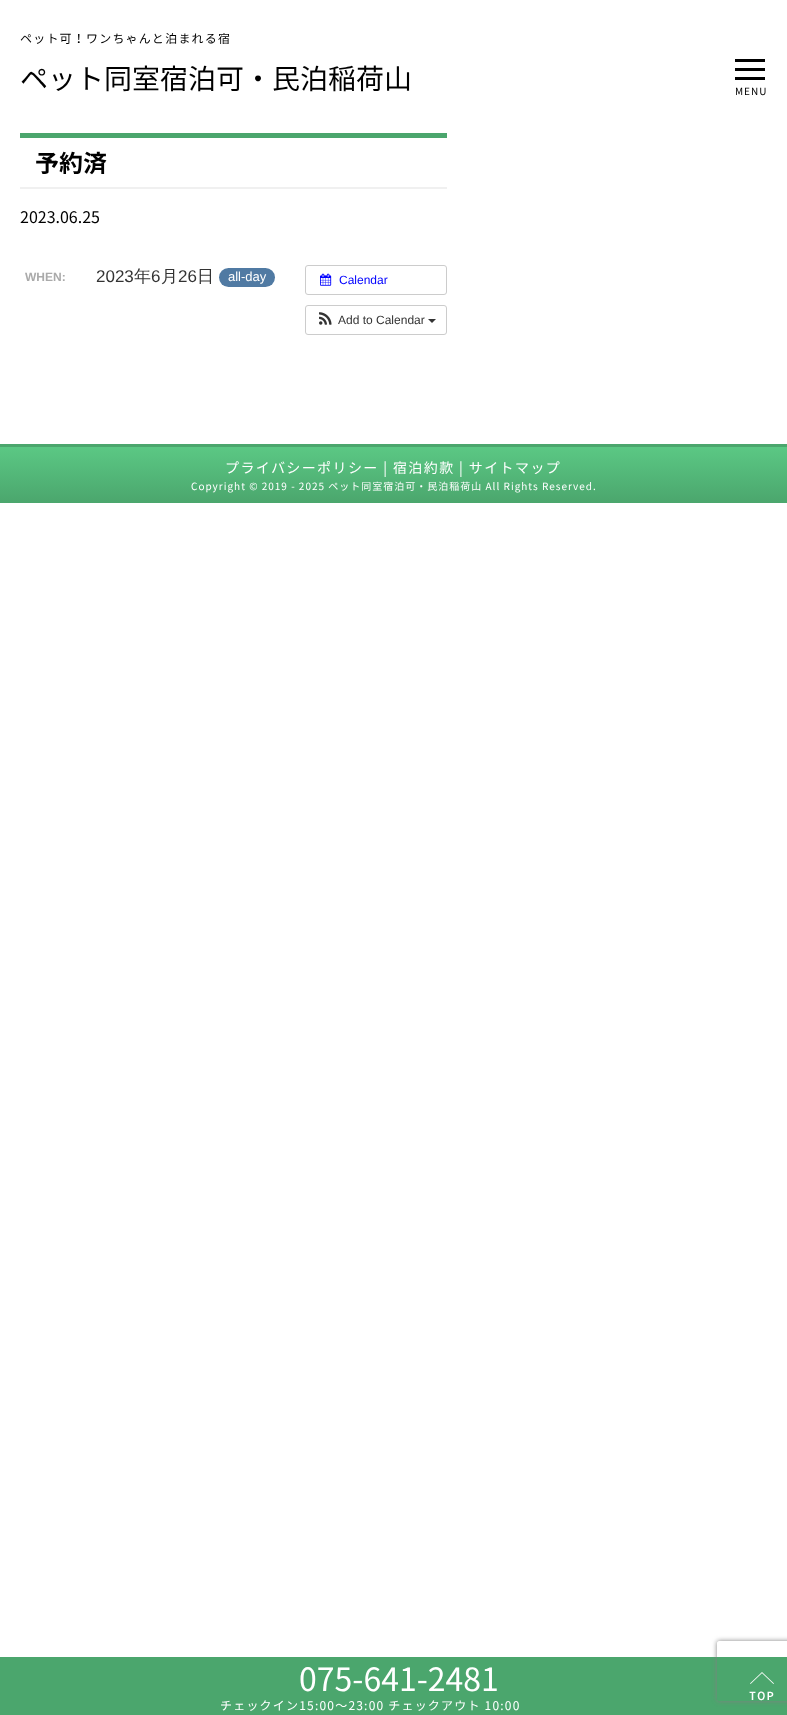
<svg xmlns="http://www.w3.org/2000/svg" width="787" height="1715">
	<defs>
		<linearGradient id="g1" gradientUnits="userSpaceOnUse" x1="394" y1="447" x2="394" y2="503"><stop offset="0" stop-color="#5BC884" /><stop offset="1" stop-color="#4BA66D" /></linearGradient>
		<clipPath id="clip1"><path d="M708 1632H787V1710H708ZM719 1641H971C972 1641 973 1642 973 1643V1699C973 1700 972 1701 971 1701H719C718 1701 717 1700 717 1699V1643C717 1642 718 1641 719 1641Z" clip-rule="evenodd" /></clipPath>
	</defs>
	<rect width="100%" height="100%" fill="#FFFFFF" />
	<text x="20" y="43" font-family="Noto Sans JP" font-size="12" letter-spacing="1.2" fill="#000000">ペット可！ワンちゃんと泊まれる宿</text>
	<text x="20" y="89" font-family="Noto Sans JP" font-size="28" fill="#000000">ペット同室宿泊可・民泊稲荷山</text>
	<rect x="735" y="59" width="30" height="3" fill="#000000" />
	<rect x="735" y="68" width="30" height="3" fill="#000000" />
	<rect x="735" y="77" width="30" height="3" fill="#000000" />
	<text x="735" y="95" font-family="Noto Sans JP" font-size="10" letter-spacing="1" fill="#000000">MENU</text>
	<rect x="20" y="133" width="427" height="5" fill="#4BA66D" />
	<rect x="20" y="187" width="427" height="2" fill="#F0F0F0" />
	<text x="35" y="172" font-family="Noto Sans JP" font-size="24" font-weight="700" fill="#000000">予約済</text>
	<text x="20" y="223" font-family="Noto Sans JP" font-size="16" fill="#000000">2023.06.25</text>
	<text x="25" y="281" font-family="Liberation Sans" font-size="12" font-weight="700" fill="#AAAAAA">WHEN:</text>
	<text x="96" y="282" font-family="Liberation Sans" font-size="17" fill="#333333">2023</text>
	<text x="134" y="282" font-family="WenQuanYi Zen Hei" font-size="17" font-weight="500" fill="#333333">年</text>
	<text x="151" y="282" font-family="Liberation Sans" font-size="17" fill="#333333">6</text>
	<text x="161" y="282" font-family="WenQuanYi Zen Hei" font-size="17" font-weight="500" fill="#333333">月</text>
	<text x="178" y="282" font-family="Liberation Sans" font-size="17" fill="#333333">26</text>
	<text x="197" y="282" font-family="WenQuanYi Zen Hei" font-size="17" font-weight="500" fill="#333333">日</text>
	<rect x="219" y="268" width="56" height="19" rx="9.5" fill="#507AA3" />
	<text x="228" y="281" font-family="Liberation Sans" font-size="13" fill="#FFFFFF">all-day</text>
	<rect x="305.5" y="265.5" width="141" height="29" rx="2.5" fill="none" stroke="#CCCCCC" />
	<image x="320" y="273" width="12" height="13" href="assets/img1.png" />
	<text x="339" y="284" font-family="Liberation Sans" font-size="12" fill="#0000FF">Calendar</text>
	<rect x="305.5" y="305.5" width="141" height="29" rx="2.5" fill="none" stroke="#CCCCCC" />
	<image x="319" y="312" width="13" height="13" href="assets/img2.png" />
	<text x="338" y="324" font-family="Liberation Sans" font-size="12" fill="#333333">Add to Calendar</text>
	<path d="M428 319H436L432 323Z" fill="#333333" />
	<rect x="0" y="447" width="787" height="56" fill="url(#g1)" />
	<rect x="0" y="444" width="787" height="3" fill="#4BA66D" />
	<text x="225" y="473" font-family="Noto Sans JP" font-size="14" letter-spacing="1.4" fill="#FFFFFF">プライバシーポリシー | 宿泊約款 | サイトマップ</text>
	<text x="191" y="490" font-family="Noto Sans JP" font-size="10" letter-spacing="1" fill="#FFFFFF">Copyright © 2019 - 2025 ペット同室宿泊可・民泊稲荷山 All Rights Reserved.</text>
	<rect x="0" y="1657" width="787" height="58" fill="#4BA66D" />
	<text x="299" y="1691" font-family="Noto Sans JP" font-size="32" fill="#FFFFFF">075-641-2481</text>
	<image x="749" y="1672" width="25" height="29" href="assets/img3.png" />
	<text x="220" y="1710" font-family="Noto Sans JP" font-size="12" letter-spacing="1.2" fill="#FFFFFF">チェックイン15:00〜23:00 チェックアウト 10:00</text>
	<g clip-path="url(#clip1)">
		<rect x="717" y="1641" width="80" height="60" rx="2" fill="#808080" filter="blur(2.5px)" />
	</g>
</svg>
